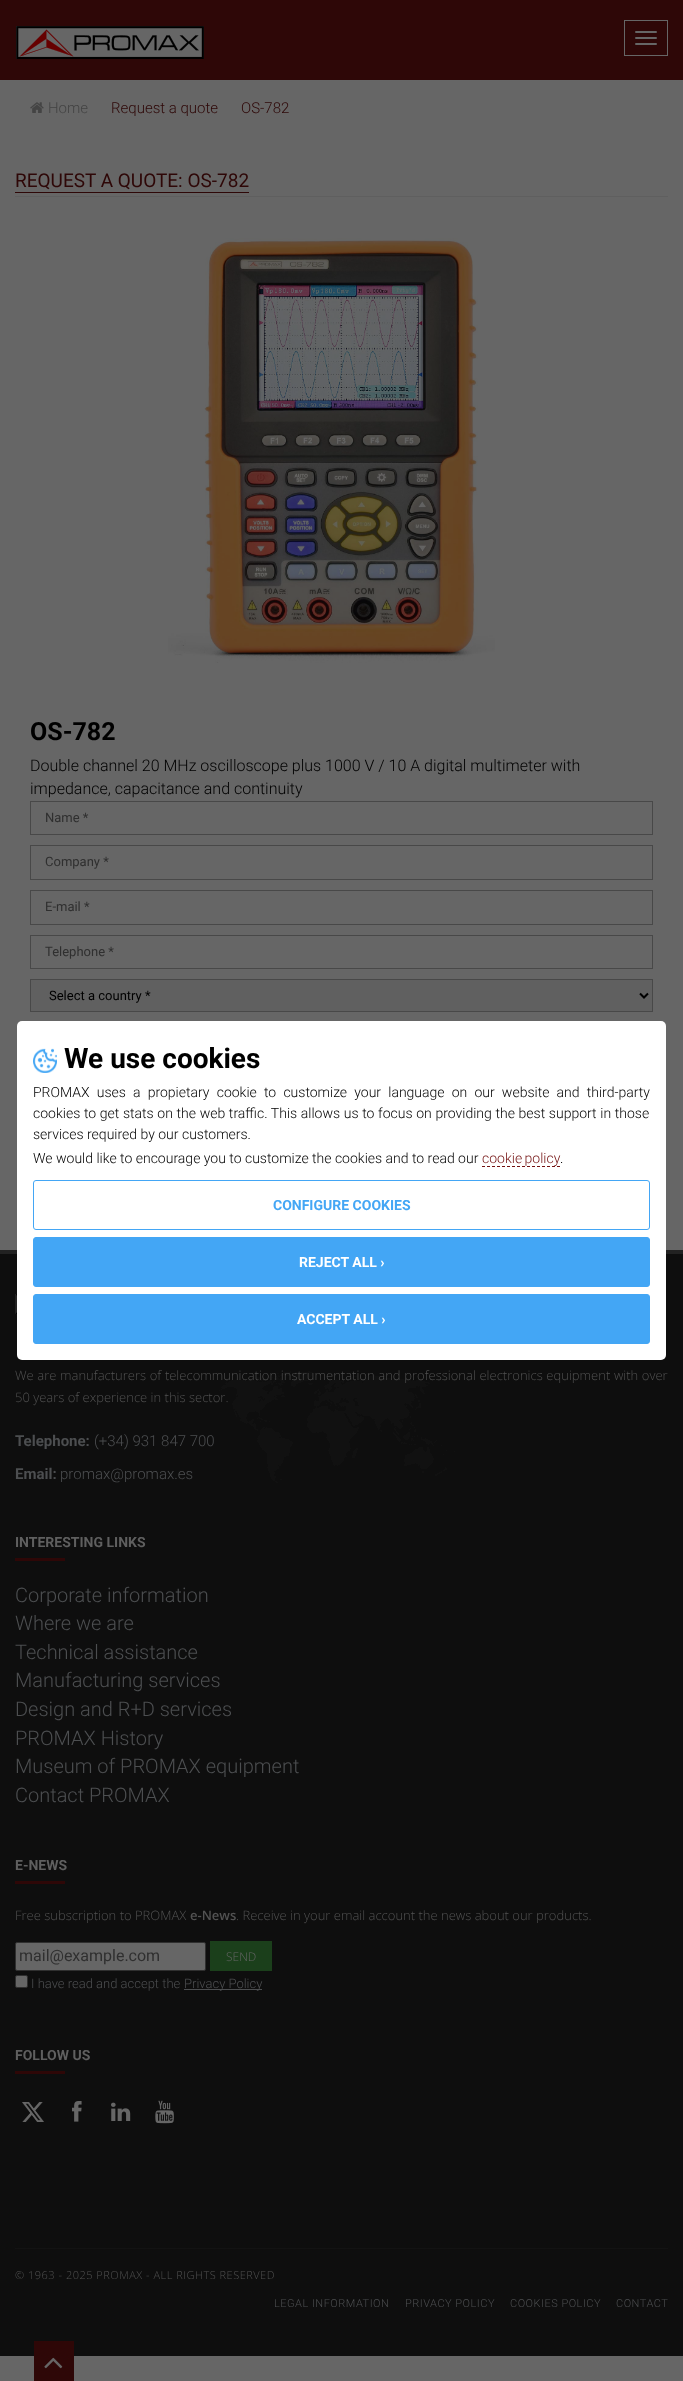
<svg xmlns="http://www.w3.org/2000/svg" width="683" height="2381">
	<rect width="100%" height="100%" fill="#666666" />
	<rect x="0" y="0" width="683" height="80" fill="#2E0707" />
	<image x="16" y="26" width="188" height="33" href="assets/img1.png" />
	<rect x="624.5" y="20.5" width="43" height="35" fill="none" stroke="#666666" />
	<rect x="635" y="31" width="22" height="2" rx="1" fill="#666666" />
	<rect x="635" y="37" width="22" height="2" rx="1" fill="#666666" />
	<rect x="635" y="43" width="22" height="2" rx="1" fill="#666666" />
	<image x="30" y="102" width="14" height="11" href="assets/img2.png" />
	<text x="48" y="113" font-family="Roboto" font-size="15" font-weight="300" fill="#444444">Home</text>
	<g font-family="Roboto" font-size="15" font-weight="300" fill="#2E0707">
		<text x="111" y="113">Request a quote</text>
		<text x="241" y="113">OS-782</text>
	</g>
	<rect x="15" y="196" width="653" height="1" fill="#5F5F5F" />
	<text x="15" y="187" font-family="Roboto" font-size="19" fill="#2E0707">REQUEST A QUOTE: OS-782</text>
	<rect x="15" y="192" width="234" height="1" fill="#2E0707" />
	<image x="168" y="238" width="327" height="425" href="assets/img3.png" />
	<text x="30" y="740" font-family="Roboto" font-size="25" font-weight="700" fill="#000000">OS-782</text>
	<g font-family="Roboto" font-size="16" font-weight="300" fill="#000000">
		<text x="30" y="771">Double channel 20 MHz oscilloscope plus 1000 V / 10 A digital multimeter with</text>
		<text x="30" y="794">impedance, capacitance and continuity</text>
	</g>
	<rect x="30.5" y="801.5" width="622" height="33" fill="none" stroke="#484848" />
	<text x="45" y="822" font-family="Roboto" font-size="13" fill="#2F2F2F">Name *</text>
	<rect x="30.5" y="845.5" width="622" height="34" fill="none" stroke="#484848" />
	<text x="45" y="866" font-family="Roboto" font-size="13" fill="#2F2F2F">Company *</text>
	<rect x="30.5" y="890.5" width="622" height="34" fill="none" stroke="#484848" />
	<text x="45" y="911" font-family="Roboto" font-size="13" fill="#2F2F2F">E-mail *</text>
	<rect x="30.5" y="935.5" width="622" height="33" fill="none" stroke="#484848" />
	<text x="45" y="956" font-family="Roboto" font-size="13" fill="#2F2F2F">Telephone *</text>
	<rect x="30.5" y="979.5" width="622" height="32" fill="#606060" stroke="#484848" />
	<path d="M640 993.5L644 997.5L648 993.5" fill="none" stroke="#000000" stroke-width="2" />
	<text x="49" y="1000" font-family="Roboto" font-size="13" fill="#000000">Select a country *</text>
	<rect x="0" y="1254" width="683" height="1102" fill="#0E0E0E" />
	<rect x="0" y="1250" width="683" height="4" fill="#222222" />
	<rect x="17" y="1021" width="649" height="339" rx="5" fill="#FFFFFF" />
	<image x="33" y="1048" width="24" height="25" href="assets/img4.png" />
	<text x="64" y="1068" font-family="Roboto" font-size="28" font-weight="700" fill="#000000">We use cookies</text>
	<g font-family="Roboto" font-size="14" font-weight="300" fill="#000000">
		<text x="33" y="1097" word-spacing="3.75">PROMAX uses a propietary cookie to customize your language on our website and third-party</text>
		<text x="33" y="1118" word-spacing="0.25">cookies to get stats on the web traffic. This allows us to focus on providing the best support in those</text>
		<text x="33" y="1139">services required by our customers.</text>
		<text x="33" y="1163">We would like to encourage you to customize the cookies and to read our</text>
	</g>
	<text x="482" y="1163" word-spacing="-1" font-family="Roboto" font-size="14" font-weight="300" fill="#731111">cookie policy</text>
	<path d="M482 1166.5H560" fill="none" stroke="#731111" stroke-dasharray="3 2" />
	<text x="560" y="1163" font-family="Roboto" font-size="14" font-weight="300" fill="#000000">.</text>
	<rect x="33.5" y="1180.5" width="616" height="49" rx="2.5" fill="none" stroke="#43A6F5" />
	<text x="273" y="1210" font-family="Roboto" font-size="14" font-weight="700" fill="#43A6F5">CONFIGURE COOKIES</text>
	<rect x="33.5" y="1237.5" width="616" height="49" rx="2.5" fill="#43A6F5" stroke="#43A6F5" />
	<text x="299" y="1267" font-family="Roboto" font-size="14" font-weight="700" fill="#FFFFFF">REJECT ALL ›</text>
	<rect x="33.5" y="1294.5" width="616" height="49" rx="2.5" fill="#43A6F5" stroke="#43A6F5" />
	<text x="297" y="1324" font-family="Roboto" font-size="14" font-weight="700" fill="#FFFFFF">ACCEPT ALL ›</text>
	<image x="219" y="1371" width="236" height="112" href="assets/img5.png" />
	<image x="15" y="1294" width="2" height="20" href="assets/img6.png" />
	<g font-family="Open Sans" font-size="13" font-weight="300" fill="#525252">
		<text x="15" y="1380" word-spacing="0.25">We are manufacturers of telecommunication instrumentation and professional electronics equipment with over</text>
		<text x="15" y="1402">50 years of experience in this sector.</text>
	</g>
	<text x="15" y="1446" font-family="Roboto" font-size="15" font-weight="700" fill="#4C4E50">Telephone:</text>
	<text x="94" y="1446" font-family="Roboto" font-size="15" font-weight="300" fill="#4C4E50">(+34) 931 847 700</text>
	<text x="15" y="1479" font-family="Roboto" font-size="15" font-weight="700" fill="#4C4E50">Email:</text>
	<text x="60" y="1479" font-family="Roboto" font-size="15" font-weight="300" fill="#4C4E50">promax@promax.es</text>
	<text x="15" y="1547" font-family="Roboto" font-size="14" font-weight="700" fill="#5F5F5F">INTERESTING LINKS</text>
	<rect x="15" y="1558" width="50" height="3" fill="#2E0707" />
	<g font-family="Roboto" font-size="20" font-weight="300" fill="#4C4E50">
		<text x="15" y="1602">Corporate information</text>
		<text x="15" y="1630">Where we are</text>
		<text x="15" y="1659">Technical assistance</text>
		<text x="15" y="1687">Manufacturing services</text>
		<text x="15" y="1716">Design and R+D services</text>
		<text x="15" y="1745">PROMAX History</text>
		<text x="15" y="1773">Museum of PROMAX equipment</text>
		<text x="15" y="1802">Contact PROMAX</text>
	</g>
	<text x="15" y="1870" font-family="Roboto" font-size="14" font-weight="700" fill="#5F5F5F">E-NEWS</text>
	<rect x="15" y="1881" width="50" height="3" fill="#2E0707" />
	<text x="15" y="1920" font-family="Open Sans" font-size="13" font-weight="300" fill="#525252">Free subscription to PROMAX</text>
	<text x="190" y="1920" font-family="Open Sans" font-size="13" font-weight="600" fill="#525252">e-News</text>
	<text x="236" y="1920" font-family="Open Sans" font-size="13" font-weight="300" fill="#525252">. Receive in your email account the news about our products.</text>
	<rect x="15.5" y="1942.5" width="190" height="28" rx="1.5" fill="#666666" stroke="#2F2F2F" />
	<text x="19" y="1961" font-family="Roboto" font-size="16" fill="#2F2F2F">mail@example.com</text>
	<rect x="210" y="1941" width="62" height="30" fill="#1B3F1B" />
	<text x="226" y="1961" font-family="Open Sans" font-size="12" font-weight="300" fill="#666666">SEND</text>
	<rect x="15.5" y="1975.5" width="12" height="12" rx="1.5" fill="#666666" stroke="#2F2F2F" />
	<text x="31" y="1988" font-family="Roboto" font-size="13" font-weight="300" fill="#4C4E50">I have read and accept the</text>
	<rect x="184" y="1989" width="78" height="1" fill="#4C4E50" />
	<text x="184" y="1988" font-family="Roboto" font-size="13" font-weight="300" fill="#4C4E50">Privacy Policy</text>
	<text x="15" y="2060" font-family="Roboto" font-size="14" font-weight="700" fill="#5F5F5F">FOLLOW US</text>
	<rect x="15" y="2071" width="50" height="3" fill="#2E0707" />
	<image x="22" y="2102" width="22" height="20" href="assets/img7.png" />
	<image x="72" y="2101" width="10" height="21" href="assets/img8.png" />
	<image x="111" y="2102" width="20" height="19" href="assets/img9.png" />
	<image x="155" y="2100" width="19" height="24" href="assets/img10.png" />
	<rect x="15" y="2248" width="653" height="1" fill="#131313" />
	<text x="15" y="2279" font-family="Open Sans" font-size="11" font-weight="300" letter-spacing="0.5" fill="#525252">© 1963 - 2025 PROMAX - ALL RIGHTS RESERVED</text>
	<g font-family="Roboto" font-size="11" font-weight="300" letter-spacing="0.5" fill="#4C4E50">
		<text x="274" y="2307">LEGAL INFORMATION</text>
		<text x="405" y="2307">PRIVACY POLICY</text>
		<text x="510" y="2307">COOKIES POLICY</text>
		<text x="616" y="2307">CONTACT</text>
	</g>
	<rect x="34" y="2341" width="40" height="40" fill="#2E0707" />
	<image x="44" y="2357" width="19" height="12" href="assets/img11.png" />
</svg>
